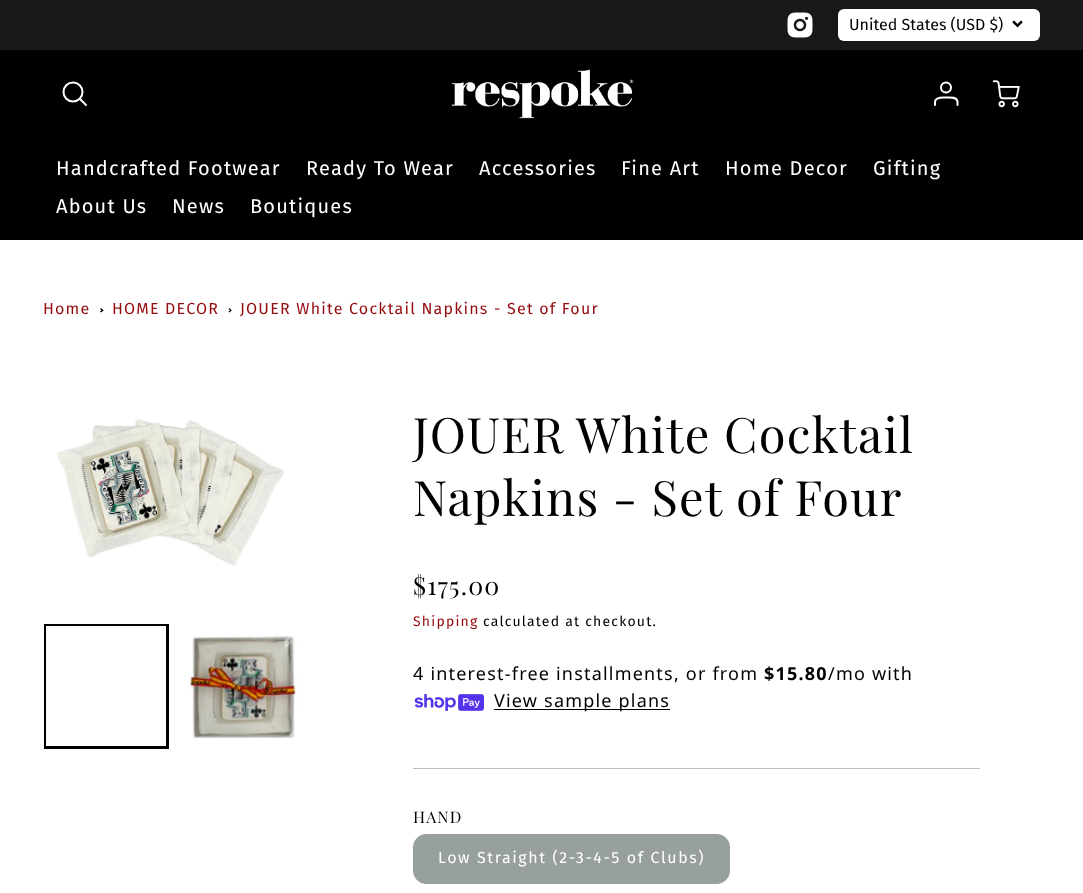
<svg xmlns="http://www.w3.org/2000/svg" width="1083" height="893">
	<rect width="100%" height="100%" fill="#FFFFFF" />
	<rect x="0" y="0" width="1083" height="50" fill="#181818" />
	<image x="787" y="12" width="26" height="26" href="assets/img1.png" />
	<rect x="838" y="9" width="202" height="32" rx="6" fill="#FFFFFF" />
	<text x="849" y="30" font-family="Fira Sans" font-size="16" fill="#000000">United States (USD $)</text>
	<image x="1012" y="20" width="11" height="8" href="assets/img2.png" />
	<rect x="0" y="50" width="1083" height="190" fill="#000000" />
	<circle cx="73" cy="92" r="9.5" fill="none" stroke="#FFFFFF" stroke-width="2" />
	<path d="M86 105L80 99" fill="none" stroke="#FFFFFF" stroke-width="2" stroke-linecap="round" stroke-linejoin="round" />
	<image x="451" y="69" width="183" height="50" href="assets/img3.png" />
	<circle cx="946" cy="87.5" r="5" fill="none" stroke="#FFFFFF" stroke-width="2" />
	<path d="M957.5 105V101.5C956.5 96.5 950 97.5 946 97.5C942.5 97.5 936 96.5 935 101.5V105" fill="none" stroke="#FFFFFF" stroke-width="2" stroke-linecap="round" stroke-linejoin="round" />
	<image x="992" y="80" width="28" height="28" href="assets/img4.png" />
	<g font-family="Fira Sans" font-size="20" letter-spacing="1.2" fill="#FFFFFF">
		<text x="56" y="175">Handcrafted Footwear</text>
		<text x="306" y="175">Ready To Wear</text>
		<text x="479" y="175">Accessories</text>
		<text x="621" y="175">Fine Art</text>
		<text x="725" y="175">Home Decor</text>
		<text x="873" y="175">Gifting</text>
		<text x="56" y="213">About Us</text>
		<text x="172" y="213">News</text>
		<text x="250" y="213">Boutiques</text>
	</g>
	<text x="43" y="314" font-family="Fira Sans" font-size="16" letter-spacing="1.2" fill="#950C10">Home</text>
	<path d="M101 308L103.5 310.5L102.5 311L100 309Z" fill="#000000" />
	<path d="M102.5 309.5L103.5 310.5L101 312.5L100 311.5Z" fill="#000000" />
	<text x="112" y="314" font-family="Fira Sans" font-size="16" letter-spacing="1.2" fill="#950C10">HOME DECOR</text>
	<path d="M229.5 308L231.5 310.5L231 311L228.5 309Z" fill="#000000" />
	<path d="M231 309.5L231.5 310.5L229.5 312.5L228.5 311.5Z" fill="#000000" />
	<text x="240" y="314" font-family="Fira Sans" font-size="16" letter-spacing="1.2" fill="#950C10">JOUER White Cocktail Napkins - Set of Four</text>
	<image x="56" y="419" width="228" height="147" href="assets/img5.png" />
	<rect x="45.5" y="625.5" width="122" height="122" fill="none" stroke="#000000" stroke-width="3" />
	<rect x="46" y="626" width="120" height="120" fill="#FFFFFF" />
	<image x="189" y="634" width="110" height="105" href="assets/img6.png" />
	<g font-family="Playfair Display" font-size="48.75" letter-spacing="1.2" fill="#000000">
		<text x="413" y="453">JOUER White Cocktail</text>
		<text x="413" y="516">Napkins - Set of Four</text>
	</g>
	<text x="413" y="595" font-family="Playfair Display" font-size="25" letter-spacing="1.2" fill="#000000">$175.00</text>
	<text x="413" y="626" font-family="Fira Sans" font-size="14" letter-spacing="1.2" fill="#950C10">Shipping</text>
	<text x="483" y="626" font-family="Fira Sans" font-size="14" letter-spacing="1.2" fill="#000000">calculated at checkout.</text>
	<text x="413" y="680" font-family="Noto Sans" font-size="18" letter-spacing="1.2" fill="#000000">4 interest-free installments, or from</text>
	<text x="764" y="680" font-family="Noto Sans" font-size="18" font-weight="700" letter-spacing="1.2" fill="#000000">$15.80</text>
	<text x="828" y="680" font-family="Noto Sans" font-size="18" letter-spacing="1.2" fill="#000000">/mo with</text>
	<image x="414" y="694" width="70" height="17" href="assets/img7.png" />
	<rect x="494" y="709" width="176" height="1" fill="#000000" />
	<text x="494" y="707" font-family="Noto Sans" font-size="18" letter-spacing="1.2" fill="#000000">View sample plans</text>
	<rect x="413" y="768" width="567" height="1" fill="#BFBFBF" />
	<text x="413" y="823" font-family="Playfair Display" font-size="16" letter-spacing="1.2" fill="#000000">HAND</text>
	<rect x="413.5" y="834.5" width="316" height="49" rx="12.5" fill="#989F9F" stroke="#989F9F" />
	<text x="438" y="863" font-family="Fira Sans" font-size="16" letter-spacing="1.6" fill="#FFFFFF">Low Straight (2-3-4-5 of Clubs)</text>
</svg>
